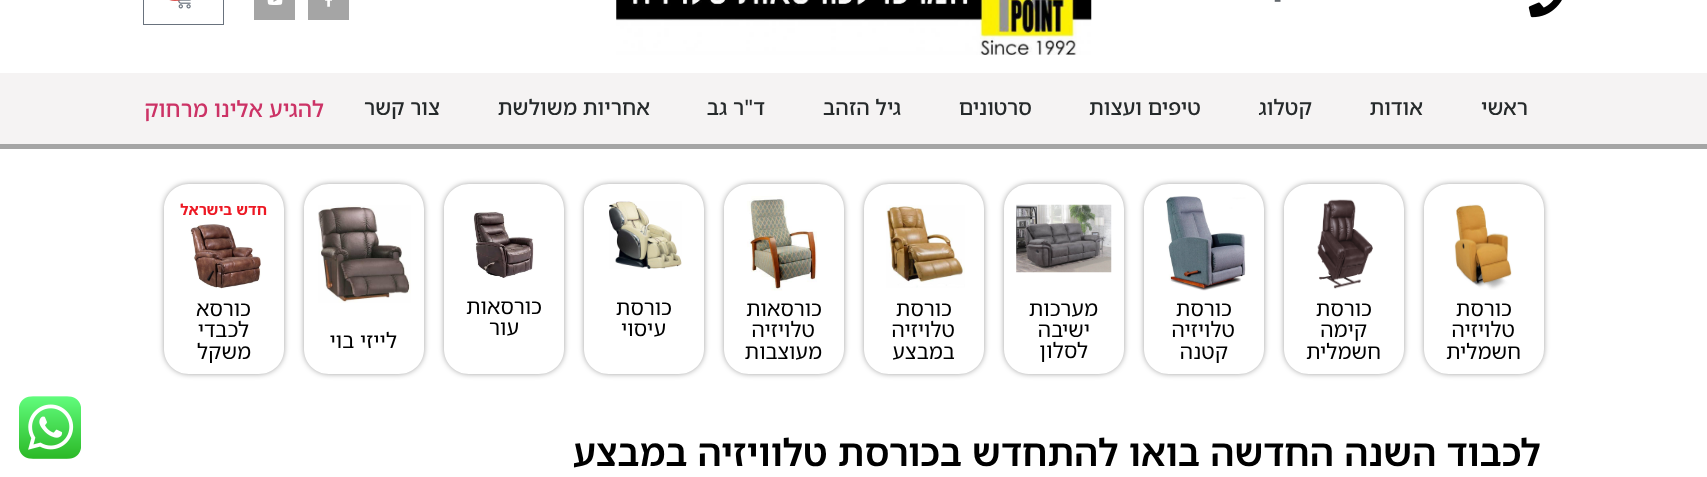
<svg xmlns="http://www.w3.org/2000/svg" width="1707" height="477">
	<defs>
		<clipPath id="clip1"><path d="M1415 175H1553V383H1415ZM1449 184H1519C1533 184 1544 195 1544 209V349C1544 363 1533 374 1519 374H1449C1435 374 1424 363 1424 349V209C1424 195 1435 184 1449 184Z" clip-rule="evenodd" /></clipPath>
		<clipPath id="clip2"><path d="M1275 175H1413V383H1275ZM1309 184H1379C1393 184 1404 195 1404 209V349C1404 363 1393 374 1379 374H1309C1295 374 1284 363 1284 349V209C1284 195 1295 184 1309 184Z" clip-rule="evenodd" /></clipPath>
		<clipPath id="clip3"><path d="M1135 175H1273V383H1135ZM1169 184H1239C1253 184 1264 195 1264 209V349C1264 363 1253 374 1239 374H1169C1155 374 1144 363 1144 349V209C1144 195 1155 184 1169 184Z" clip-rule="evenodd" /></clipPath>
		<clipPath id="clip4"><path d="M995 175H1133V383H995ZM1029 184H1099C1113 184 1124 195 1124 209V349C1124 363 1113 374 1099 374H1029C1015 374 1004 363 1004 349V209C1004 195 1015 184 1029 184Z" clip-rule="evenodd" /></clipPath>
		<clipPath id="clip5"><path d="M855 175H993V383H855ZM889 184H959C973 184 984 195 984 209V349C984 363 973 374 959 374H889C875 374 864 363 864 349V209C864 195 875 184 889 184Z" clip-rule="evenodd" /></clipPath>
		<clipPath id="clip6"><path d="M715 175H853V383H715ZM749 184H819C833 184 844 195 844 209V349C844 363 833 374 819 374H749C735 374 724 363 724 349V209C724 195 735 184 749 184Z" clip-rule="evenodd" /></clipPath>
		<clipPath id="clip7"><path d="M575 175H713V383H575ZM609 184H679C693 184 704 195 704 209V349C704 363 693 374 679 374H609C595 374 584 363 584 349V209C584 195 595 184 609 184Z" clip-rule="evenodd" /></clipPath>
		<clipPath id="clip8"><path d="M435 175H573V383H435ZM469 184H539C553 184 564 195 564 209V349C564 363 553 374 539 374H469C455 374 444 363 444 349V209C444 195 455 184 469 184Z" clip-rule="evenodd" /></clipPath>
		<clipPath id="clip9"><path d="M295 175H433V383H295ZM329 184H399C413 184 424 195 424 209V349C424 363 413 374 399 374H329C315 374 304 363 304 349V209C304 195 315 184 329 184Z" clip-rule="evenodd" /></clipPath>
		<clipPath id="clip10"><path d="M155 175H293V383H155ZM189 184H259C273 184 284 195 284 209V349C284 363 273 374 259 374H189C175 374 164 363 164 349V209C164 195 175 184 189 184Z" clip-rule="evenodd" /></clipPath>
	</defs>
	<rect width="100%" height="100%" fill="#FFFFFF" />
	<image x="1528" y="0" width="34" height="18" href="assets/img1.png" />
	<text x="1274" y="7" font-family="Noto Sans Hebrew" font-size="22.5" fill="#54595F">-</text>
	<image x="616" y="0" width="476" height="55" href="assets/img2.png" />
	<rect x="308" y="0" width="41" height="20" fill="#A5A5A5" />
	<image x="325" y="0" width="7" height="7" href="assets/img3.png" />
	<rect x="254" y="0" width="41" height="20" fill="#A5A5A5" />
	<image x="267" y="0" width="16" height="5" href="assets/img4.png" />
	<rect x="143.5" y="-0.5" width="80" height="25" fill="none" stroke="#69727D" />
	<image x="178" y="0" width="13" height="9" href="assets/img5.png" />
	<rect x="165" y="-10" width="20" height="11" rx="10" fill="#D9534F" />
	<rect x="0" y="73" width="1707" height="71" fill="#F5F3F3" />
	<rect x="0" y="144" width="1707" height="5" fill="#A5A5A5" />
	<g font-family="Noto Sans Hebrew" font-size="21.25" font-weight="500" direction="rtl" fill="#262A2B">
		<text x="1528" y="115">ראשי</text>
		<text x="1423" y="115">אודות</text>
		<text x="1312" y="115">קטלוג</text>
		<text x="1201" y="115">טיפים ועצות</text>
		<text x="1032" y="115">סרטונים</text>
		<text x="901" y="115">גיל הזהב</text>
		<text x="765" y="115">ד"ר גב</text>
		<text x="650" y="115">אחריות משולשת</text>
		<text x="440" y="115">צור קשר</text>
	</g>
	<text x="324" y="117" font-family="Noto Sans Hebrew" font-size="22.5" font-weight="500" direction="rtl" fill="#CC3366">להגיע אלינו מרחוק</text>
	<g clip-path="url(#clip1)">
		<rect x="1425" y="185" width="118" height="188" rx="24" fill="#000000" fill-opacity="0.5" filter="blur(3px)" />
	</g>
	<image x="1454" y="204" width="58" height="86" href="assets/img6.png" />
	<g font-family="Noto Sans Hebrew" font-size="21.25" direction="rtl" fill="#000000">
		<text x="1512" y="316">כורסת</text>
		<text x="1515" y="337">טלויזיה</text>
		<text x="1521" y="359">חשמלית</text>
	</g>
	<g clip-path="url(#clip2)">
		<rect x="1285" y="185" width="118" height="188" rx="24" fill="#000000" fill-opacity="0.5" filter="blur(3px)" />
	</g>
	<image x="1317" y="199" width="56" height="90" href="assets/img7.png" />
	<g font-family="Noto Sans Hebrew" font-size="21.25" direction="rtl" fill="#000000">
		<text x="1372" y="316">כורסת</text>
		<text x="1367" y="337">קימה</text>
		<text x="1381" y="359">חשמלית</text>
	</g>
	<g clip-path="url(#clip3)">
		<rect x="1145" y="185" width="118" height="188" rx="24" fill="#000000" fill-opacity="0.5" filter="blur(3px)" />
	</g>
	<image x="1166" y="196" width="80" height="95" href="assets/img8.png" />
	<g font-family="Noto Sans Hebrew" font-size="21.25" direction="rtl" fill="#000000">
		<text x="1232" y="316">כורסת</text>
		<text x="1235" y="337">טלויזיה</text>
		<text x="1228" y="359">קטנה</text>
	</g>
	<g clip-path="url(#clip4)">
		<rect x="1005" y="185" width="118" height="188" rx="24" fill="#000000" fill-opacity="0.5" filter="blur(3px)" />
	</g>
	<image x="1016" y="204" width="96" height="69" href="assets/img9.png" />
	<g font-family="Noto Sans Hebrew" font-size="21.25" direction="rtl" fill="#000000">
		<text x="1098" y="316">מערכות</text>
		<text x="1090" y="337">ישיבה</text>
		<text x="1088" y="358">לסלון</text>
	</g>
	<g clip-path="url(#clip5)">
		<rect x="865" y="185" width="118" height="188" rx="24" fill="#000000" fill-opacity="0.5" filter="blur(3px)" />
	</g>
	<image x="886" y="205" width="79" height="83" href="assets/img10.png" />
	<g font-family="Noto Sans Hebrew" font-size="21.25" direction="rtl" fill="#000000">
		<text x="952" y="316">כורסת</text>
		<text x="955" y="337">טלויזיה</text>
		<text x="955" y="359">במבצע</text>
	</g>
	<g clip-path="url(#clip6)">
		<rect x="725" y="185" width="118" height="188" rx="24" fill="#000000" fill-opacity="0.5" filter="blur(3px)" />
	</g>
	<image x="747" y="196" width="70" height="95" href="assets/img11.png" />
	<g font-family="Noto Sans Hebrew" font-size="21.25" direction="rtl" fill="#000000">
		<text x="822" y="316">כורסאות</text>
		<text x="815" y="337">טלויזיה</text>
		<text x="822" y="359">מעוצבות</text>
	</g>
	<g clip-path="url(#clip7)">
		<rect x="585" y="185" width="118" height="188" rx="24" fill="#000000" fill-opacity="0.5" filter="blur(3px)" />
	</g>
	<image x="609" y="201" width="73" height="68" href="assets/img12.png" />
	<g font-family="Noto Sans Hebrew" font-size="21.25" direction="rtl" fill="#000000">
		<text x="672" y="315">כורסת</text>
		<text x="666" y="336">עיסוי</text>
	</g>
	<g clip-path="url(#clip8)">
		<rect x="445" y="185" width="118" height="188" rx="24" fill="#000000" fill-opacity="0.5" filter="blur(3px)" />
	</g>
	<image x="473" y="211" width="61" height="67" href="assets/img13.png" />
	<g font-family="Noto Sans Hebrew" font-size="21.25" direction="rtl" fill="#000000">
		<text x="542" y="314">כורסאות</text>
		<text x="519" y="335">עור</text>
	</g>
	<g clip-path="url(#clip9)">
		<rect x="305" y="185" width="118" height="188" rx="24" fill="#000000" fill-opacity="0.5" filter="blur(3px)" />
	</g>
	<image x="318" y="205" width="93" height="98" href="assets/img14.png" />
	<text x="397" y="348" font-family="Noto Sans Hebrew" font-size="21.25" direction="rtl" fill="#000000">לייזי בוי</text>
	<g clip-path="url(#clip10)">
		<rect x="165" y="185" width="118" height="188" rx="24" fill="#000000" fill-opacity="0.5" filter="blur(3px)" />
	</g>
	<text x="267" y="215" font-family="Noto Sans Hebrew" font-size="15" font-weight="700" direction="rtl" fill="#ED1924">חדש בישראל</text>
	<image x="190" y="224" width="71" height="65" href="assets/img15.png" />
	<g font-family="Noto Sans Hebrew" font-size="21.25" direction="rtl" fill="#000000">
		<text x="251" y="316">כורסא</text>
		<text x="249" y="337">לכבדי</text>
		<text x="251" y="359">משקל</text>
	</g>
	<text x="1541" y="466" font-family="Noto Sans Hebrew" font-size="37.5" font-weight="600" direction="rtl" fill="#000000">לכבוד השנה החדשה בואו להתחדש בכורסת טלוויזיה במבצע</text>
	<image x="19" y="396" width="62" height="63" href="assets/img16.png" />
</svg>
